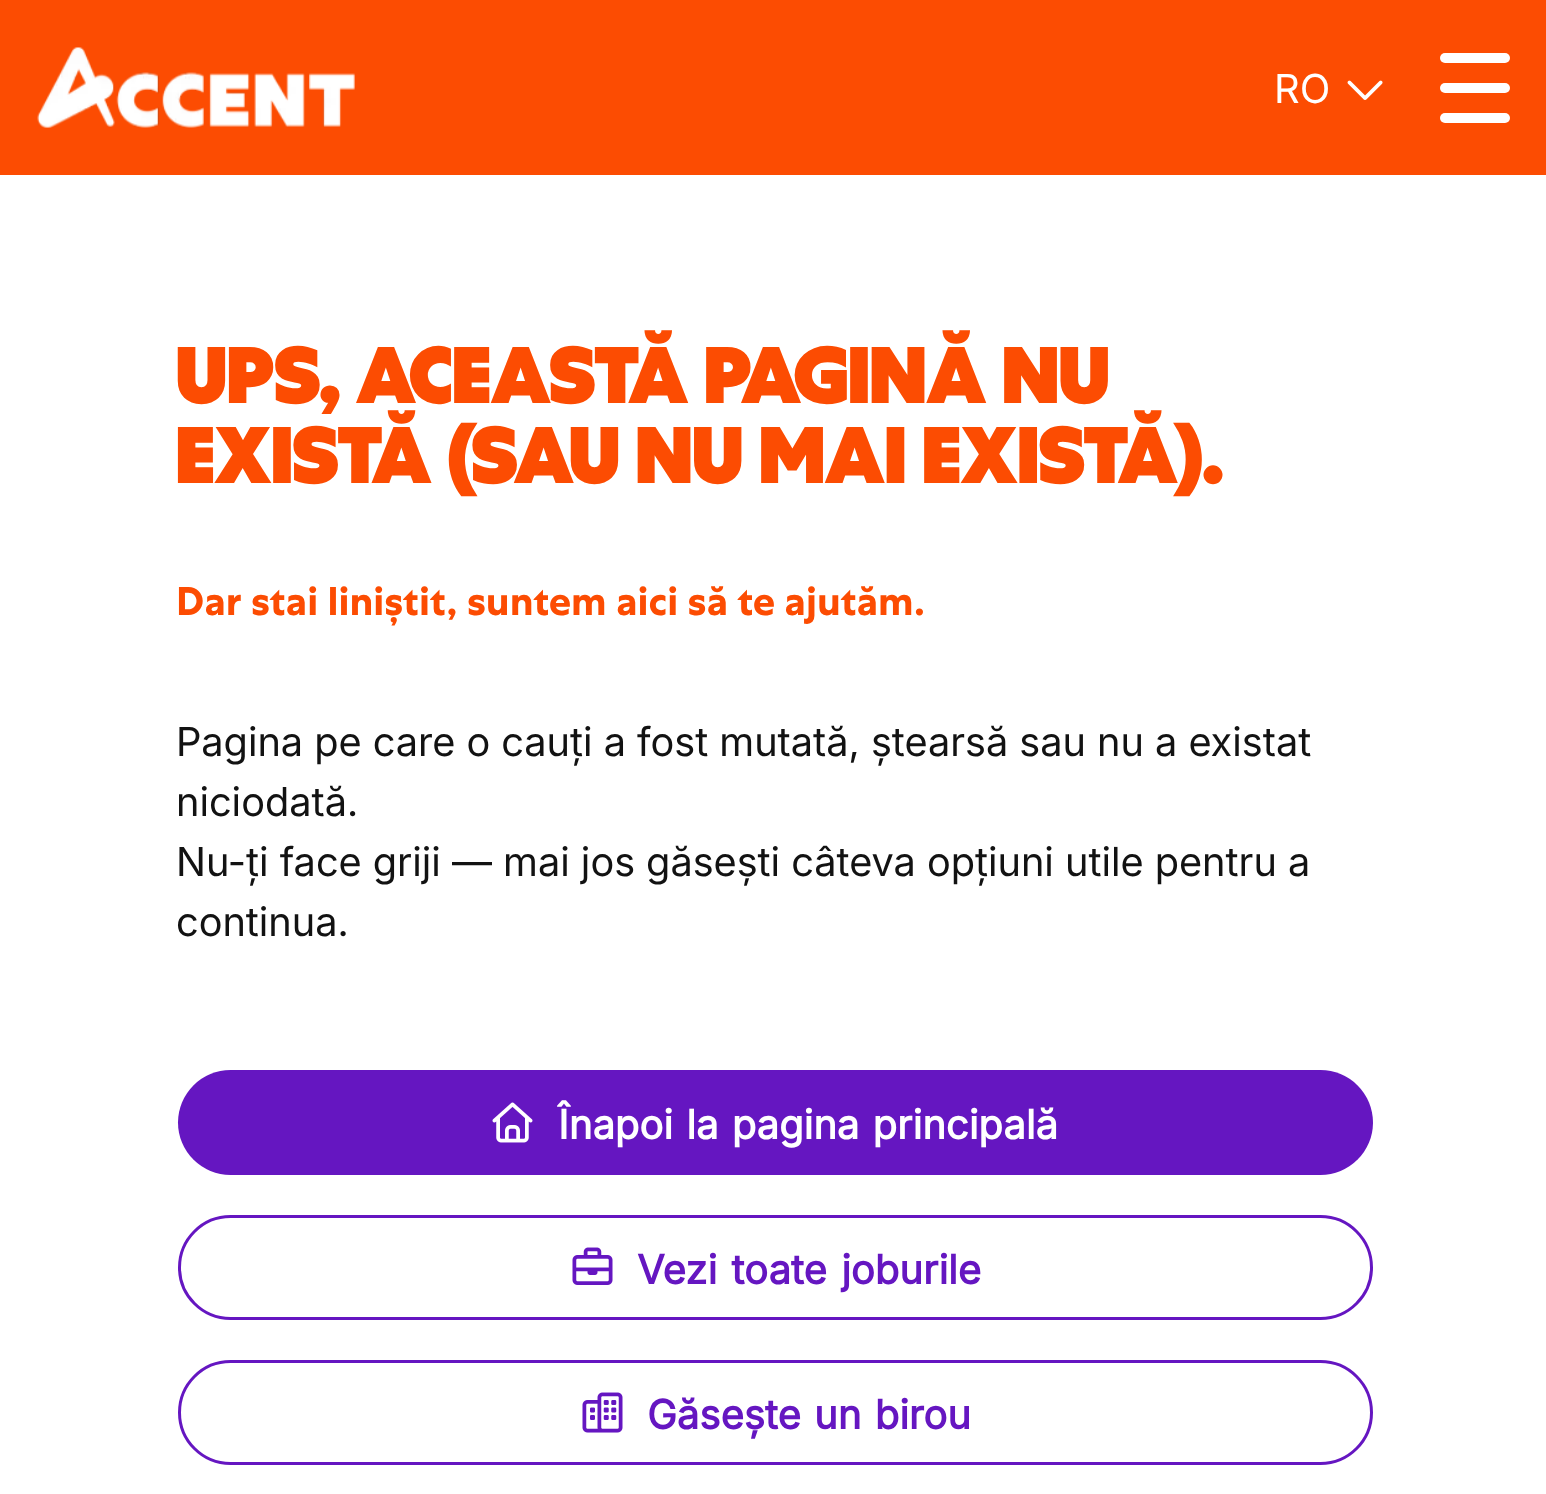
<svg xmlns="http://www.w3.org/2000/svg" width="1546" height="1494">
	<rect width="100%" height="100%" fill="#FFFFFF" />
	<rect x="0" y="0" width="1546" height="175" fill="#FC4C02" />
	<image x="37" y="47" width="318" height="81" href="assets/img1.png" />
	<text x="1274" y="103" font-family="'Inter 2'" font-size="40" fill="#FFFFFF">RO</text>
	<image x="1347" y="80" width="36" height="20" href="assets/img2.png" />
	<rect x="1440" y="53" width="70" height="10" rx="5" fill="#FFFFFF" />
	<rect x="1440" y="83" width="70" height="10" rx="5" fill="#FFFFFF" />
	<rect x="1440" y="113" width="70" height="10" rx="5" fill="#FFFFFF" />
	<g font-family="'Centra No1'" font-size="80" font-weight="900" fill="#FC4C02">
		<text x="176" y="403">UPS, ACEASTĂ PAGINĂ NU</text>
		<text x="176" y="483">EXISTĂ (SAU NU MAI EXISTĂ).</text>
	</g>
	<text x="176" y="615" font-family="'Centra No1'" font-size="40" font-weight="700" fill="#FC4C02">Dar stai liniștit, suntem aici să te ajutăm.</text>
	<g font-family="Inter" font-size="40" fill="#121212">
		<text x="176" y="756">Pagina pe care o cauți a fost mutată, ștearsă sau nu a existat</text>
		<text x="176" y="816">niciodată.</text>
		<text x="176" y="876">Nu-ți face griji — mai jos găsești câteva opțiuni utile pentru a</text>
		<text x="176" y="936">continua.</text>
	</g>
	<rect x="178" y="1070" width="1195" height="105" rx="52.5" fill="#6516C1" />
	<image x="492" y="1102" width="41" height="41" href="assets/img3.png" />
	<text x="558" y="1139" word-spacing="2" font-family="Inter" font-size="40" font-weight="700" fill="#FFFFFF">Înapoi la pagina principală</text>
	<rect x="179.5" y="1216.5" width="1192" height="102" rx="51" fill="none" stroke="#6516C1" stroke-width="3" />
	<image x="572" y="1247" width="41" height="38" href="assets/img4.png" />
	<text x="637" y="1284" word-spacing="3" font-family="Inter" font-size="40" font-weight="700" fill="#6516C1">Vezi toate joburile</text>
	<rect x="179.5" y="1361.5" width="1192" height="102" rx="51" fill="none" stroke="#6516C1" stroke-width="3" />
	<image x="582" y="1392" width="41" height="41" href="assets/img5.png" />
	<text x="647" y="1429" word-spacing="2" font-family="Inter" font-size="40" font-weight="700" fill="#6516C1">Găsește un birou</text>
</svg>
